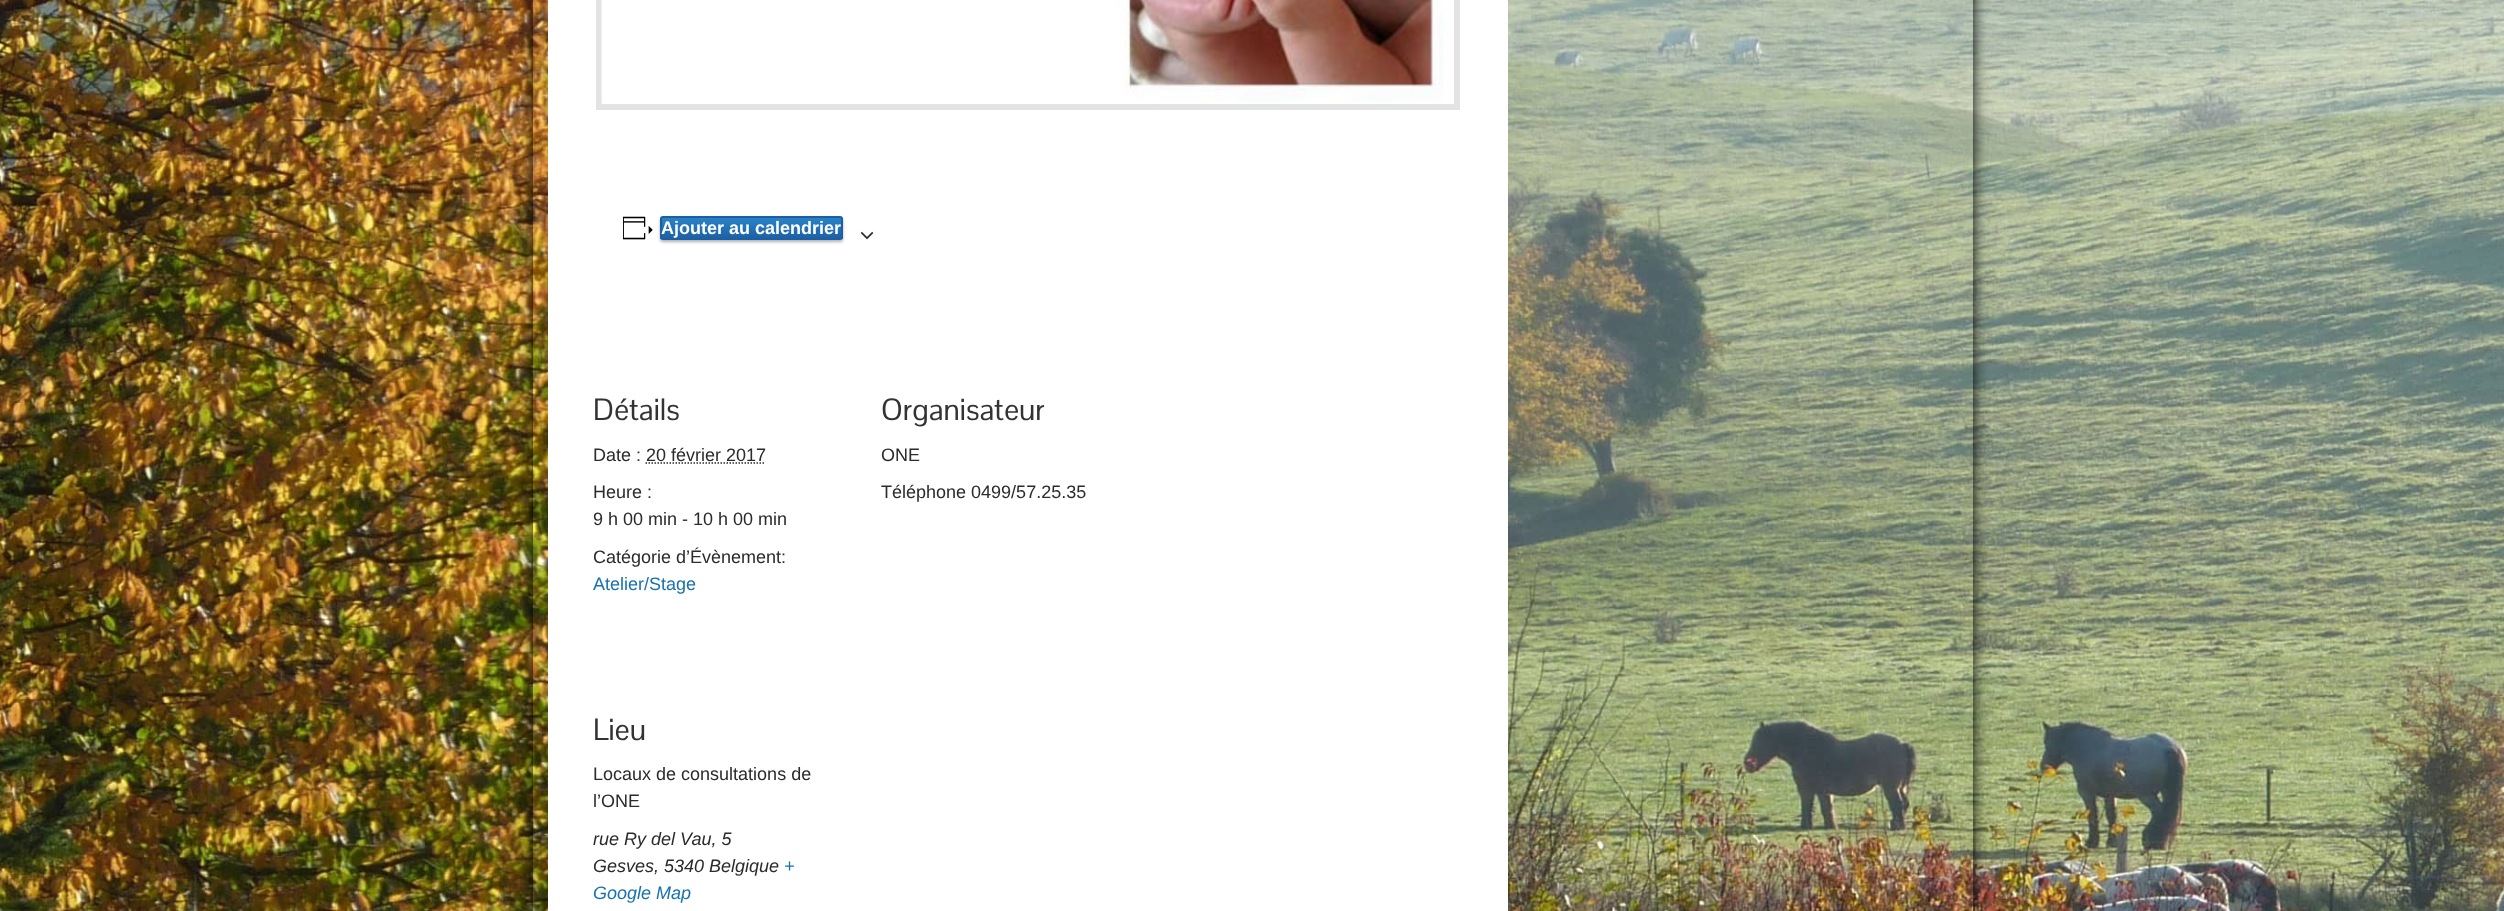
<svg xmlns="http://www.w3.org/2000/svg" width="2504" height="911">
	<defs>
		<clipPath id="clip1"><path d="M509 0H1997V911H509ZM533-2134H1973V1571H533Z" clip-rule="evenodd" /></clipPath>
		<clipPath id="clip2"><rect x="660" y="216" width="183" height="24" rx="3" /></clipPath>
		<linearGradient id="g1" gradientUnits="userSpaceOnUse" x1="752" y1="218" x2="752" y2="239"><stop offset="0" stop-color="#2982C5" /><stop offset="1" stop-color="#1C5FA5" /></linearGradient>
	</defs>
	<rect width="100%" height="100%" fill="#FFFFFF" />
	<image x="0" y="0" width="2504" height="911" href="assets/img1.png" />
	<g clip-path="url(#clip1)">
		<rect x="533" y="-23" width="1440" height="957" fill="#000000" filter="blur(7.5px)" />
	</g>
	<rect x="548" y="0" width="960" height="911" fill="#FFFFFF" />
	<rect x="599" y="-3" width="858" height="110" fill="none" stroke="#E3E3E3" stroke-width="6" />
	<image x="601" y="0" width="843" height="103" href="assets/img2.png" />
	<image x="623" y="216" width="30" height="24" href="assets/img3.png" />
	<rect x="660" y="218" width="183" height="24" rx="3" fill="#000000" fill-opacity="0.3" filter="blur(1.5px)" />
	<g clip-path="url(#clip2)">
		<rect x="660" y="218" width="183" height="21" fill="url(#g1)" />
	</g>
	<rect x="661" y="217" width="181" height="22" rx="2" fill="none" stroke="#1C5FA5" stroke-width="2" />
	<text x="661" y="234" font-family="Liberation Sans" font-size="18" font-weight="700" fill="#FFFFFF">Ajouter au calendrier</text>
	<image x="860" y="231" width="14" height="9" href="assets/img4.png" />
	<text x="593" y="420" font-family="Pontano Sans" font-size="30" fill="#333333">Détails</text>
	<text x="593" y="461" font-family="Liberation Sans" font-size="18" fill="#2C2B2B">Date : 20 février 2017</text>
	<path d="M645.5 463H765.5" fill="none" stroke="#2C2B2B" stroke-width="1.5" stroke-dasharray="1.5 1.5" />
	<g font-family="Liberation Sans" font-size="18" fill="#2C2B2B">
		<text x="593" y="498">Heure :</text>
		<text x="593" y="525">9 h 00 min - 10 h 00 min</text>
		<text x="593" y="563">Catégorie d’Évènement:</text>
	</g>
	<text x="593" y="590" font-family="Liberation Sans" font-size="18" fill="#1772AF">Atelier/Stage</text>
	<text x="881" y="420" font-family="Pontano Sans" font-size="30" fill="#333333">Organisateur</text>
	<g font-family="Liberation Sans" font-size="18" fill="#2C2B2B">
		<text x="881" y="461">ONE</text>
		<text x="881" y="498">Téléphone 0499/57.25.35</text>
	</g>
	<text x="593" y="740" font-family="Pontano Sans" font-size="30" fill="#333333">Lieu</text>
	<g font-family="Liberation Sans" font-size="18" fill="#2C2B2B">
		<text x="593" y="780">Locaux de consultations de</text>
		<text x="593" y="807">l’ONE</text>
	</g>
	<g font-family="Liberation Sans" font-size="18" font-style="italic" fill="#2C2B2B">
		<text x="593" y="845">rue Ry del Vau, 5</text>
		<text x="593" y="872">Gesves, 5340 Belgique</text>
	</g>
	<g font-family="Liberation Sans" font-size="18" font-style="italic" fill="#1772AF">
		<text x="784" y="872">+</text>
		<text x="593" y="899">Google Map</text>
	</g>
</svg>
